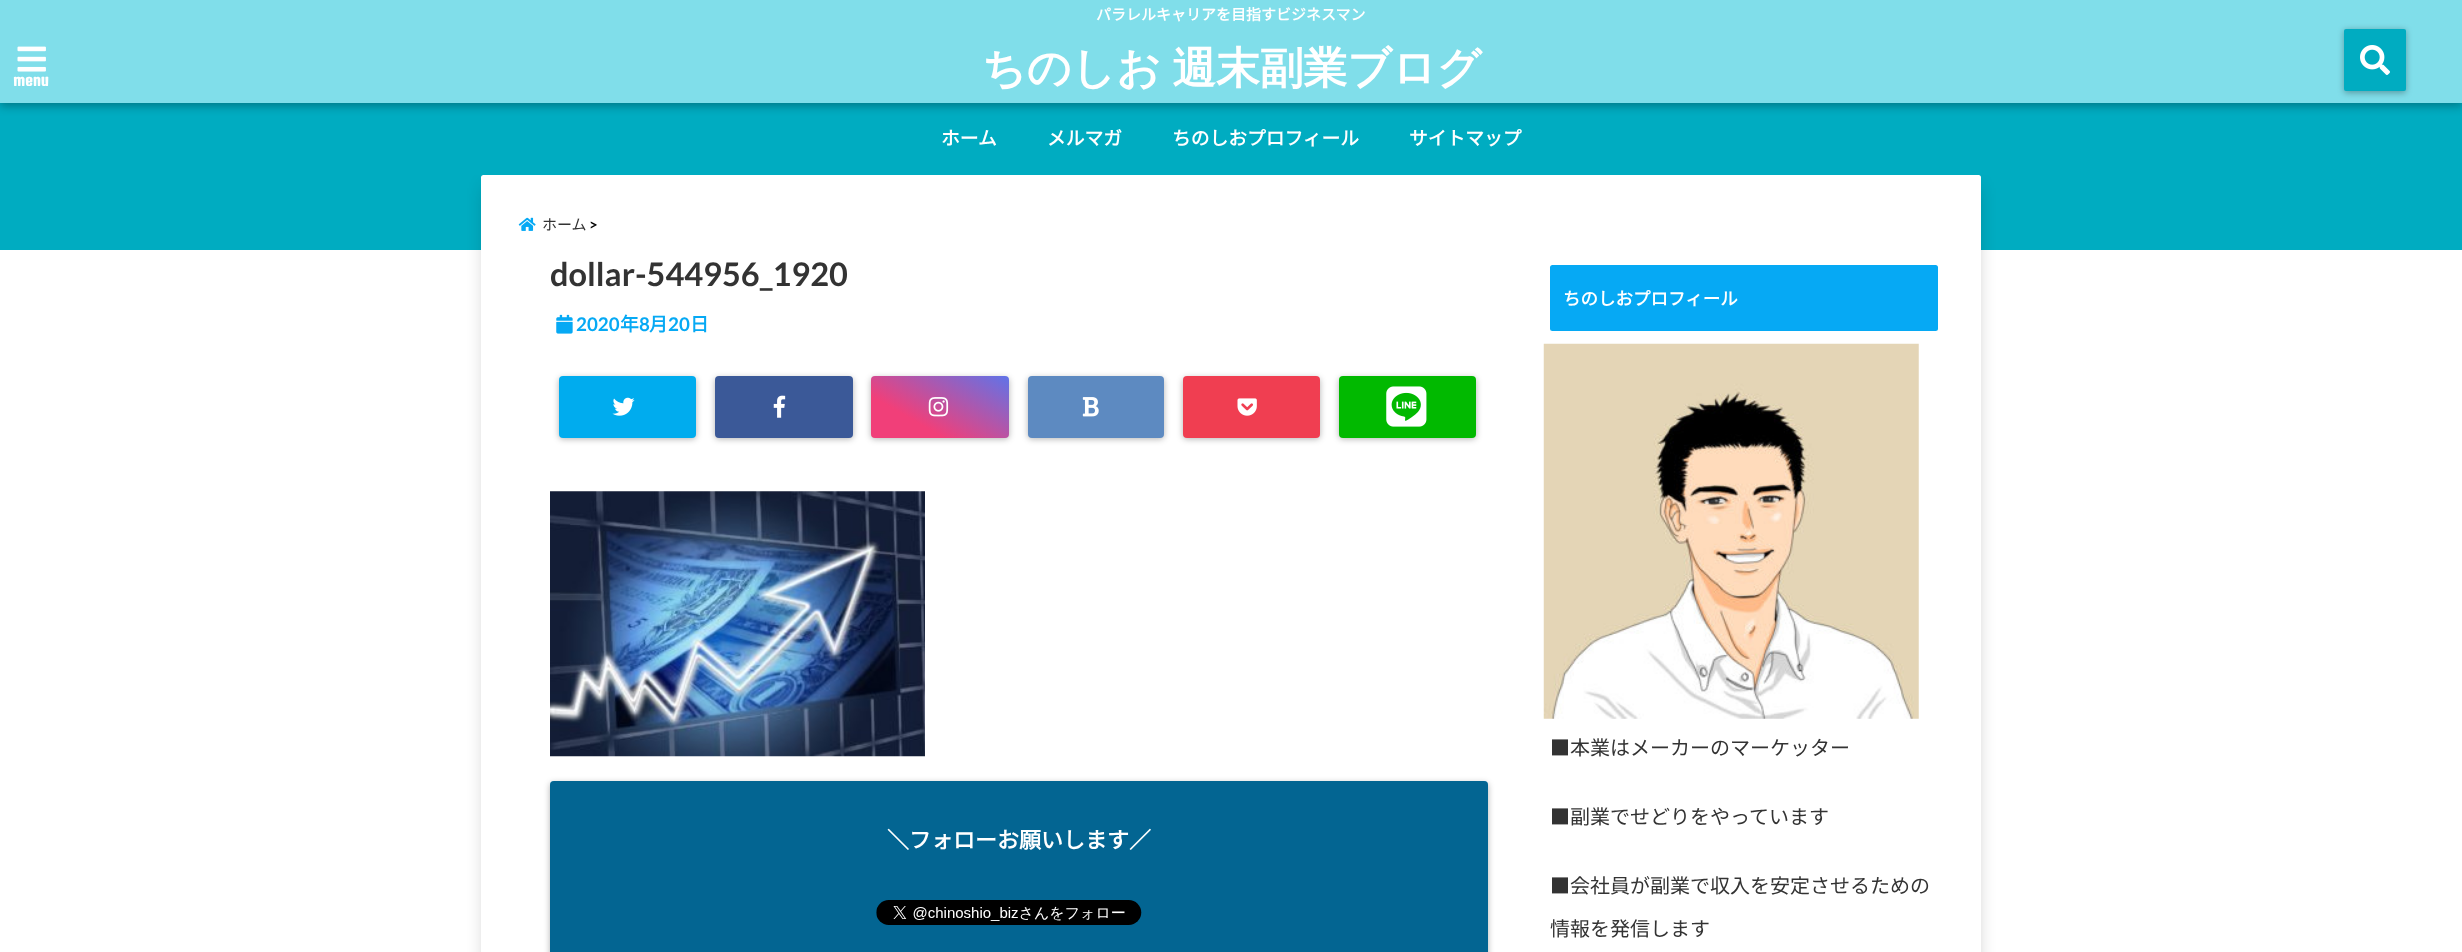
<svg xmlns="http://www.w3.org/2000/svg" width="2462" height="952">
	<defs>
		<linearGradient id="g1" gradientUnits="userSpaceOnUse" x1="910" y1="460" x2="979" y2="339"><stop offset="0.26" stop-color="#F13F79" /><stop offset="1" stop-color="#427EFF" /></linearGradient>
	</defs>
	<rect width="100%" height="100%" fill="#FFFFFF" />
	<rect x="0" y="175" width="2462" height="75" fill="#00ACC1" />
	<rect x="488" y="188" width="1487" height="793" fill="#000000" fill-opacity="0.3" filter="blur(9.5px)" />
	<rect x="0" y="103" width="2462" height="72" fill="#00ACC1" />
	<rect x="0" y="4" width="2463" height="102" fill="#000000" fill-opacity="0.3" filter="blur(5px)" />
	<rect x="0" y="0" width="2462" height="103" fill="#80DEEA" />
	<text x="1096" y="20" font-family="Noto Sans JP" font-size="15" font-weight="700" fill="#FFFFFF">パラレルキャリアを目指すビジネスマン</text>
	<image x="17" y="46" width="29" height="26" href="assets/img1.png" />
	<text x="13" y="86" font-family="Denk One" font-size="15" font-weight="700" fill="#FFFFFF">menu</text>
	<text x="982" y="83" word-spacing="-2" font-family="WenQuanYi Zen Hei" font-size="43.75" font-weight="700" fill="#FFFFFF">ちのしお 週末副業ブログ</text>
	<rect x="2344" y="30" width="62" height="63" rx="2" fill="#000000" fill-opacity="0.3" filter="blur(3px)" />
	<rect x="2344" y="29" width="62" height="62" rx="2" fill="#00ACC1" />
	<image x="2360" y="45" width="30" height="30" href="assets/img2.png" />
	<g font-family="Noto Sans JP" font-size="18.75" font-weight="700" fill="#FFFFFF">
		<text x="941" y="145">ホーム</text>
		<text x="1047" y="145">メルマガ</text>
		<text x="1172" y="145">ちのしおプロフィール</text>
		<text x="1409" y="145">サイトマップ</text>
	</g>
	<rect x="481" y="175" width="1500" height="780" rx="2.5" fill="#FFFFFF" />
	<image x="518" y="217" width="18" height="14" href="assets/img3.png" />
	<text x="542" y="230" font-family="Noto Sans JP" font-size="15" font-weight="100" fill="#333333">ホーム</text>
	<text x="589" y="230" font-family="Lato" font-size="15" font-weight="700" fill="#010101">&gt;</text>
	<text x="550" y="286" font-family="Lato" font-size="32.5" font-weight="700" fill="#333333">dollar-544956_1920</text>
	<image x="556" y="314" width="17" height="20" href="assets/img4.png" />
	<text x="576" y="331" font-family="Lato" font-size="18.75" font-weight="700" fill="#06A9F4">2020</text>
	<text x="620" y="331" font-family="Noto Sans JP" font-size="18.75" font-weight="700" fill="#06A9F4">年</text>
	<text x="639" y="331" font-family="Lato" font-size="18.75" font-weight="700" fill="#06A9F4">8</text>
	<text x="649" y="331" font-family="Noto Sans JP" font-size="18.75" font-weight="700" fill="#06A9F4">月</text>
	<text x="668" y="331" font-family="Lato" font-size="18.75" font-weight="700" fill="#06A9F4">20</text>
	<text x="690" y="331" font-family="Noto Sans JP" font-size="18.75" font-weight="700" fill="#06A9F4">日</text>
	<rect x="559" y="378" width="137" height="61" rx="4" fill="#000000" fill-opacity="0.3" filter="blur(3px)" />
	<rect x="559" y="376" width="137" height="62" rx="4" fill="#00ACEE" />
	<image x="612" y="397" width="23" height="19" href="assets/img5.png" />
	<rect x="715" y="378" width="138" height="61" rx="4" fill="#000000" fill-opacity="0.3" filter="blur(3px)" />
	<rect x="715" y="376" width="138" height="62" rx="4" fill="#3B5998" />
	<image x="773" y="395" width="13" height="23" href="assets/img6.png" />
	<rect x="871" y="378" width="138" height="61" rx="4" fill="#000000" fill-opacity="0.3" filter="blur(3px)" />
	<rect x="871" y="376" width="138" height="62" rx="4" fill="url(#g1)" />
	<image x="928" y="397" width="21" height="20" href="assets/img7.png" />
	<rect x="1028" y="378" width="136" height="61" rx="4" fill="#000000" fill-opacity="0.3" filter="blur(3px)" />
	<rect x="1028" y="376" width="136" height="62" rx="4" fill="#5D8AC1" />
	<image x="1082" y="397" width="17" height="20" href="assets/img8.png" />
	<rect x="1183" y="378" width="137" height="61" rx="4" fill="#000000" fill-opacity="0.3" filter="blur(3px)" />
	<rect x="1183" y="376" width="137" height="62" rx="4" fill="#F03E51" />
	<image x="1237" y="398" width="20" height="18" href="assets/img9.png" />
	<rect x="1339" y="378" width="137" height="61" rx="4" fill="#000000" fill-opacity="0.3" filter="blur(3px)" />
	<rect x="1339" y="376" width="137" height="62" rx="4" fill="#01B900" />
	<image x="1386" y="386" width="41" height="41" href="assets/img10.png" />
	<image x="550" y="491" width="375" height="266" href="assets/img11.png" />
	<rect x="550" y="783" width="938" height="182" rx="4" fill="#000000" fill-opacity="0.3" filter="blur(3px)" />
	<rect x="550" y="781" width="938" height="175" rx="4" fill="#06A9F4" />
	<rect x="550" y="781" width="938" height="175" rx="4" fill="#000000" fill-opacity="0.4" />
	<text x="887" y="848" font-family="Noto Sans JP" font-size="22" font-weight="700" fill="#FFFFFF">＼フォローお願いします／</text>
	<image x="876" y="900" width="266" height="25" href="assets/img12.png" />
	<rect x="1550" y="265" width="388" height="66" rx="2.5" fill="#06A9F4" />
	<text x="1563" y="305" font-family="Noto Sans JP" font-size="17.5" font-weight="700" fill="#FFFFFF">ちのしおプロフィール</text>
	<image x="1543" y="343" width="376" height="376" href="assets/img13.png" />
	<g font-family="Noto Sans JP" font-size="20" font-weight="100" fill="#333333">
		<text x="1550" y="755">■本業はメーカーのマーケッター</text>
		<text x="1550" y="824">■副業でせどりをやっています</text>
		<text x="1550" y="893">■会社員が副業で収入を安定させるための</text>
		<text x="1550" y="936">情報を発信します</text>
	</g>
</svg>
